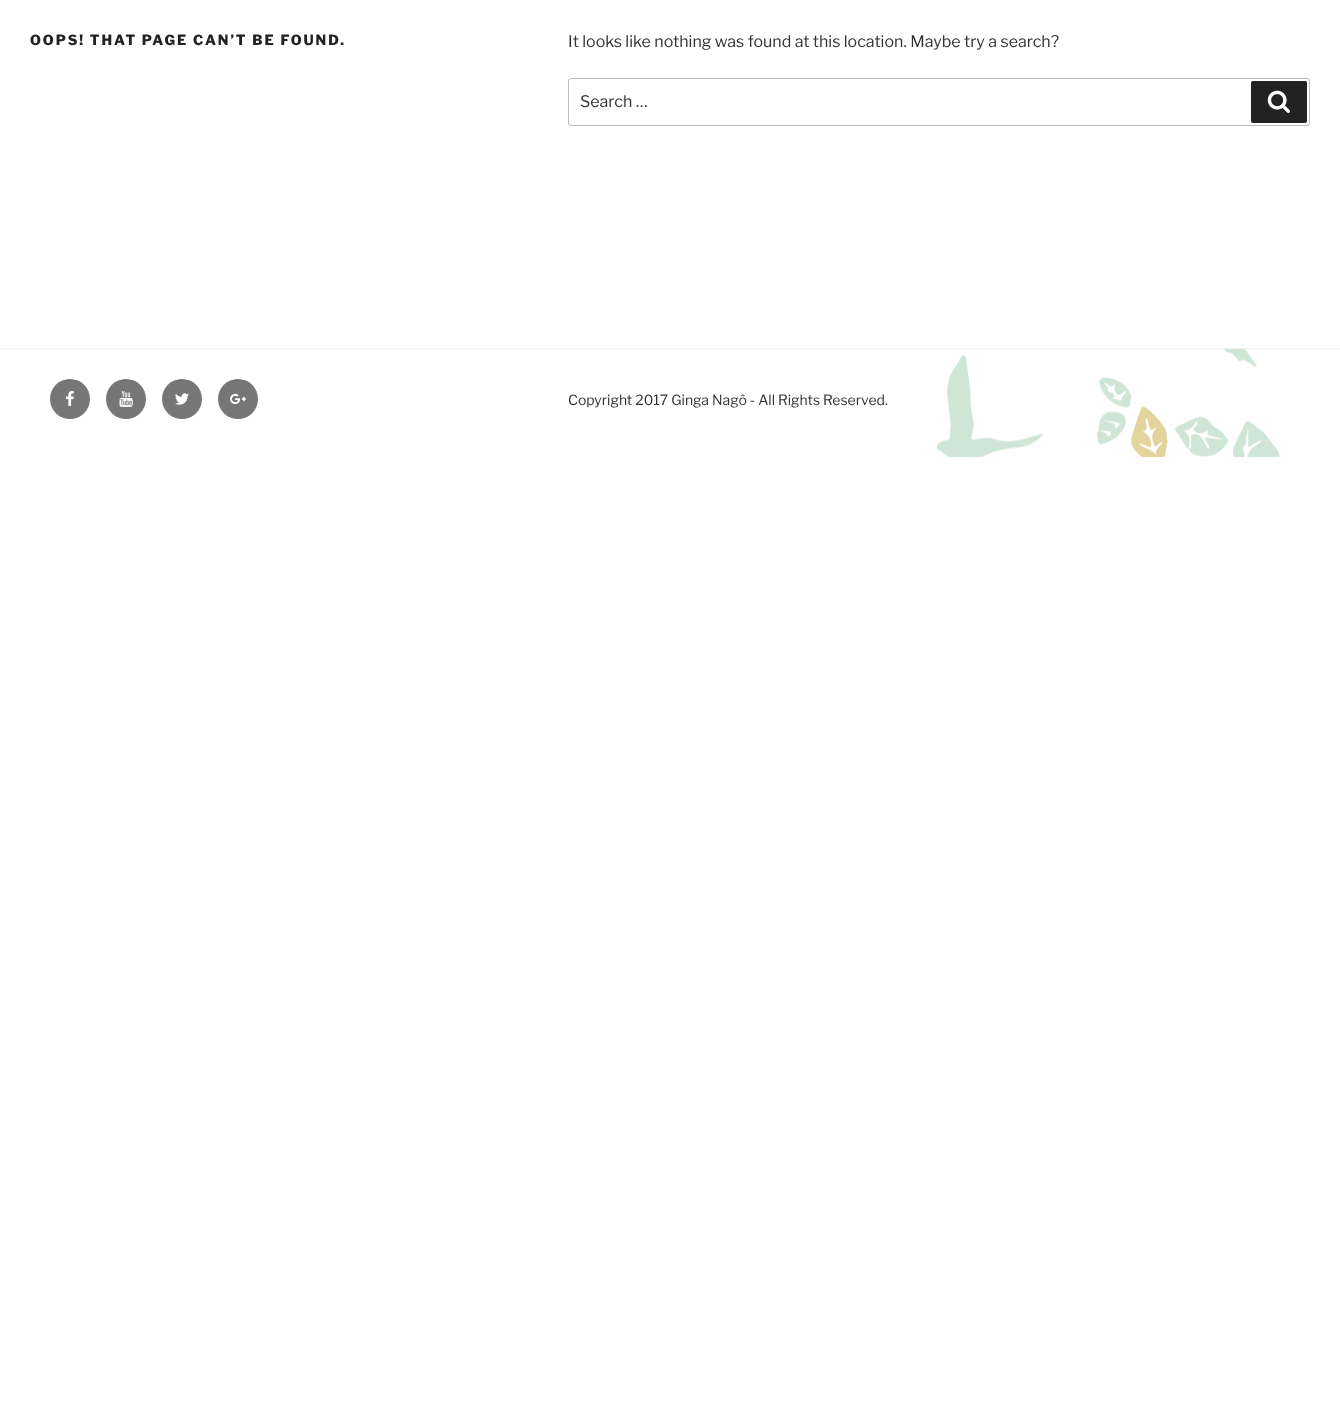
<svg xmlns="http://www.w3.org/2000/svg" width="1340" height="1418">
	<rect width="100%" height="100%" fill="#FFFFFF" />
	<text x="30" y="45" font-family="Libre Franklin" font-size="14" font-weight="800" letter-spacing="1.95" fill="#222222">OOPS! THAT PAGE CAN’T BE FOUND.</text>
	<text x="568" y="47" font-family="Libre Franklin" font-size="16" fill="#333333">It looks like nothing was found at this location. Maybe try a search?</text>
	<rect x="568.5" y="78.5" width="741" height="47" rx="2.5" fill="none" stroke="#BBBBBB" />
	<text x="580" y="107" font-family="Libre Franklin" font-size="16" fill="#333333">Search …</text>
	<rect x="1251" y="81" width="56" height="42" rx="2" fill="#222222" />
	<image x="1267" y="90" width="23" height="23" href="assets/img1.png" />
	<image x="937" y="349" width="343" height="108" href="assets/img2.png" />
	<rect x="0" y="348" width="1340" height="1" fill="#EEEEEE" />
	<circle cx="70" cy="399" r="20" fill="#767676" />
	<image x="66" y="391" width="8" height="15" href="assets/img3.png" />
	<circle cx="126" cy="399" r="20" fill="#767676" />
	<image x="119" y="391" width="14" height="16" href="assets/img4.png" />
	<circle cx="182" cy="399" r="20" fill="#767676" />
	<image x="175" y="393" width="14" height="12" href="assets/img5.png" />
	<circle cx="238" cy="399" r="20" fill="#767676" />
	<image x="230" y="393" width="16" height="12" href="assets/img6.png" />
	<text x="568" y="405" font-family="Libre Franklin" font-size="14" fill="#333333">Copyright 2017 Ginga Nagô - All Rights Reserved.</text>
</svg>
